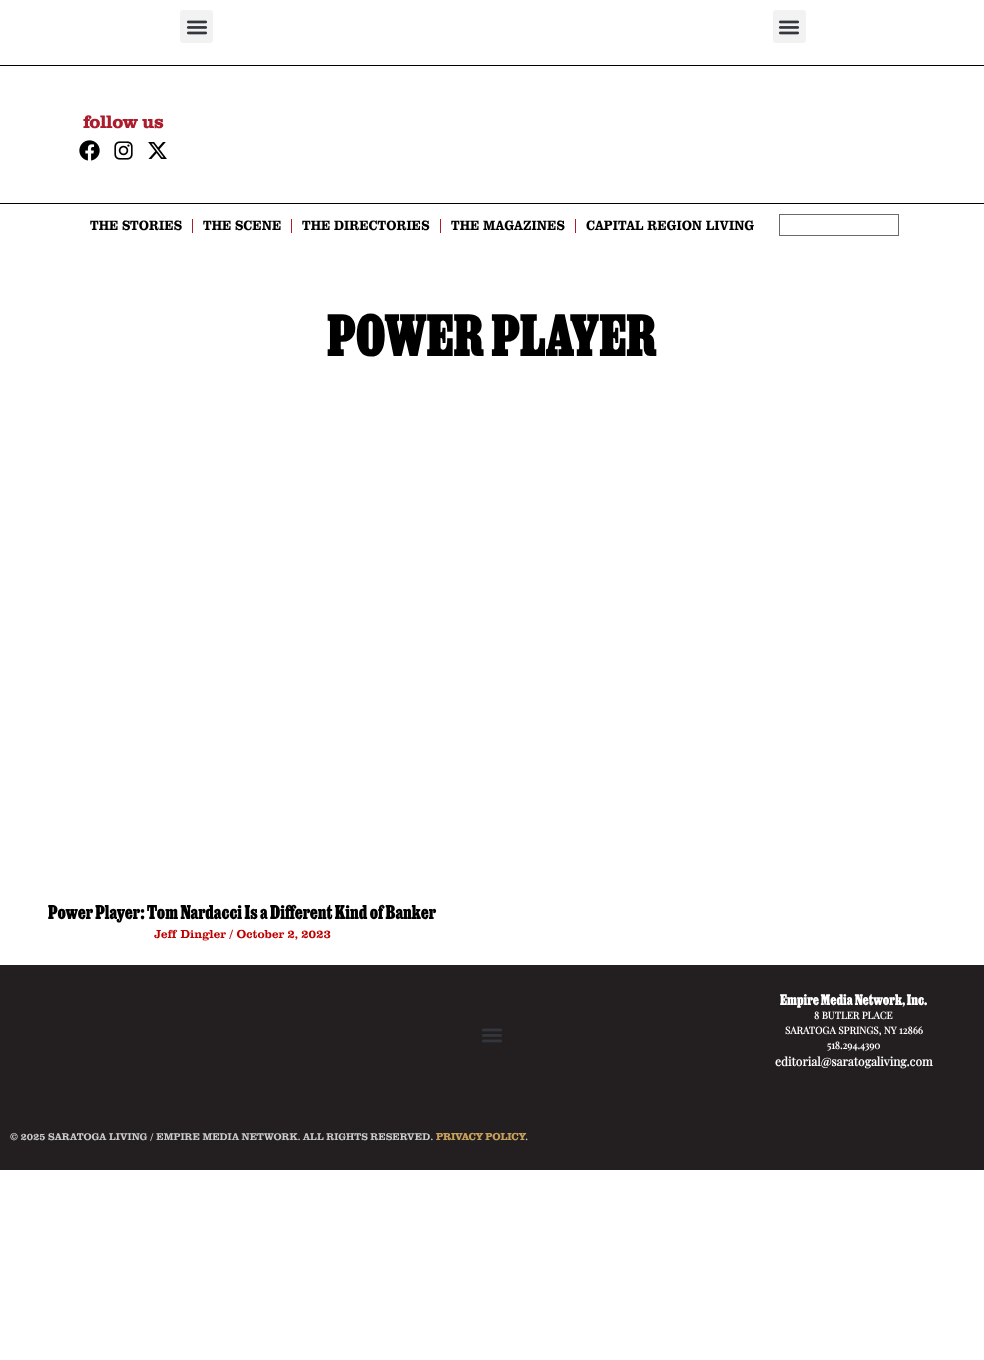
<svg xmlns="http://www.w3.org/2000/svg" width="984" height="1360">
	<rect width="100%" height="100%" fill="#FFFFFF" />
	<rect x="180" y="10" width="33" height="33" rx="3" fill="#F2F2F2" />
	<image x="186" y="20" width="22" height="15" href="assets/img1.png" />
	<rect x="773" y="10" width="33" height="33" rx="3" fill="#F2F2F2" />
	<image x="778" y="20" width="22" height="15" href="assets/img1.png" />
	<rect x="0" y="65" width="984" height="1" fill="#000000" />
	<text x="83" y="128" font-family="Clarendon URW" font-size="18" font-weight="700" fill="#AC1C2C">follow us</text>
	<image x="79" y="140" width="21" height="21" href="assets/img2.png" />
	<image x="114" y="141" width="19" height="19" href="assets/img3.png" />
	<image x="148" y="142" width="19" height="17" href="assets/img4.png" />
	<rect x="0" y="203" width="984" height="1" fill="#000000" />
	<text x="90" y="230" font-family="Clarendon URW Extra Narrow" font-size="14" font-weight="500" fill="#000000">THE STORIES</text>
	<rect x="192" y="219" width="1" height="14" fill="#AC1C2C" />
	<text x="203" y="230" font-family="Clarendon URW Extra Narrow" font-size="14" font-weight="500" fill="#000000">THE SCENE</text>
	<rect x="291" y="219" width="1" height="14" fill="#AC1C2C" />
	<text x="302" y="230" font-family="Clarendon URW Extra Narrow" font-size="14" font-weight="500" fill="#000000">THE DIRECTORIES</text>
	<rect x="440" y="219" width="1" height="14" fill="#AC1C2C" />
	<text x="451" y="230" font-family="Clarendon URW Extra Narrow" font-size="14" font-weight="500" fill="#000000">THE MAGAZINES</text>
	<rect x="575" y="219" width="1" height="14" fill="#AC1C2C" />
	<text x="586" y="230" font-family="Clarendon URW Extra Narrow" font-size="14" font-weight="500" fill="#000000">CAPITAL REGION LIVING</text>
	<rect x="779.5" y="214.5" width="119" height="21" fill="none" stroke="#6A6A6A" />
	<text x="327" y="356" font-family="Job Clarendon" font-size="54" font-weight="700" fill="#000000">POWER PLAYER</text>
	<text x="48" y="919" font-family="Job Clarendon" font-size="18" font-weight="700" fill="#000000">Power Player: Tom Nardacci Is a Different Kind of Banker</text>
	<text x="154" y="938" font-family="Clarendon URW" font-size="12" font-weight="500" fill="#C00000">Jeff Dingler / October 2, 2023</text>
	<rect x="0" y="965" width="984" height="205" fill="#231F20" />
	<image x="482" y="1028" width="20" height="15" href="assets/img5.png" />
	<text x="780" y="1005" font-family="Job Clarendon" font-size="14" font-weight="700" fill="#FFFFFF">Empire Media Network, Inc.</text>
	<g font-family="Playfair Display" font-size="10" font-weight="700" fill="#FFFFFF">
		<text x="814" y="1019">8 BUTLER PLACE</text>
		<text x="785" y="1034">SARATOGA SPRINGS, NY 12866</text>
		<text x="827" y="1049">518.294.4390</text>
	</g>
	<text x="775" y="1066" font-family="Playfair Display" font-size="12" font-weight="700" fill="#FFFFFF">editorial@saratogaliving.com</text>
	<text x="10" y="1140" font-family="Clarendon URW" font-size="10" font-weight="500" fill="#CBCBCB">© 2025 SARATOGA LIVING / EMPIRE MEDIA NETWORK. ALL RIGHTS RESERVED.</text>
	<text x="436" y="1140" font-family="Clarendon URW" font-size="10" font-weight="700" fill="#C6A05A">PRIVACY POLICY</text>
	<text x="525" y="1140" font-family="Clarendon URW" font-size="10" font-weight="500" fill="#CBCBCB">.</text>
</svg>
